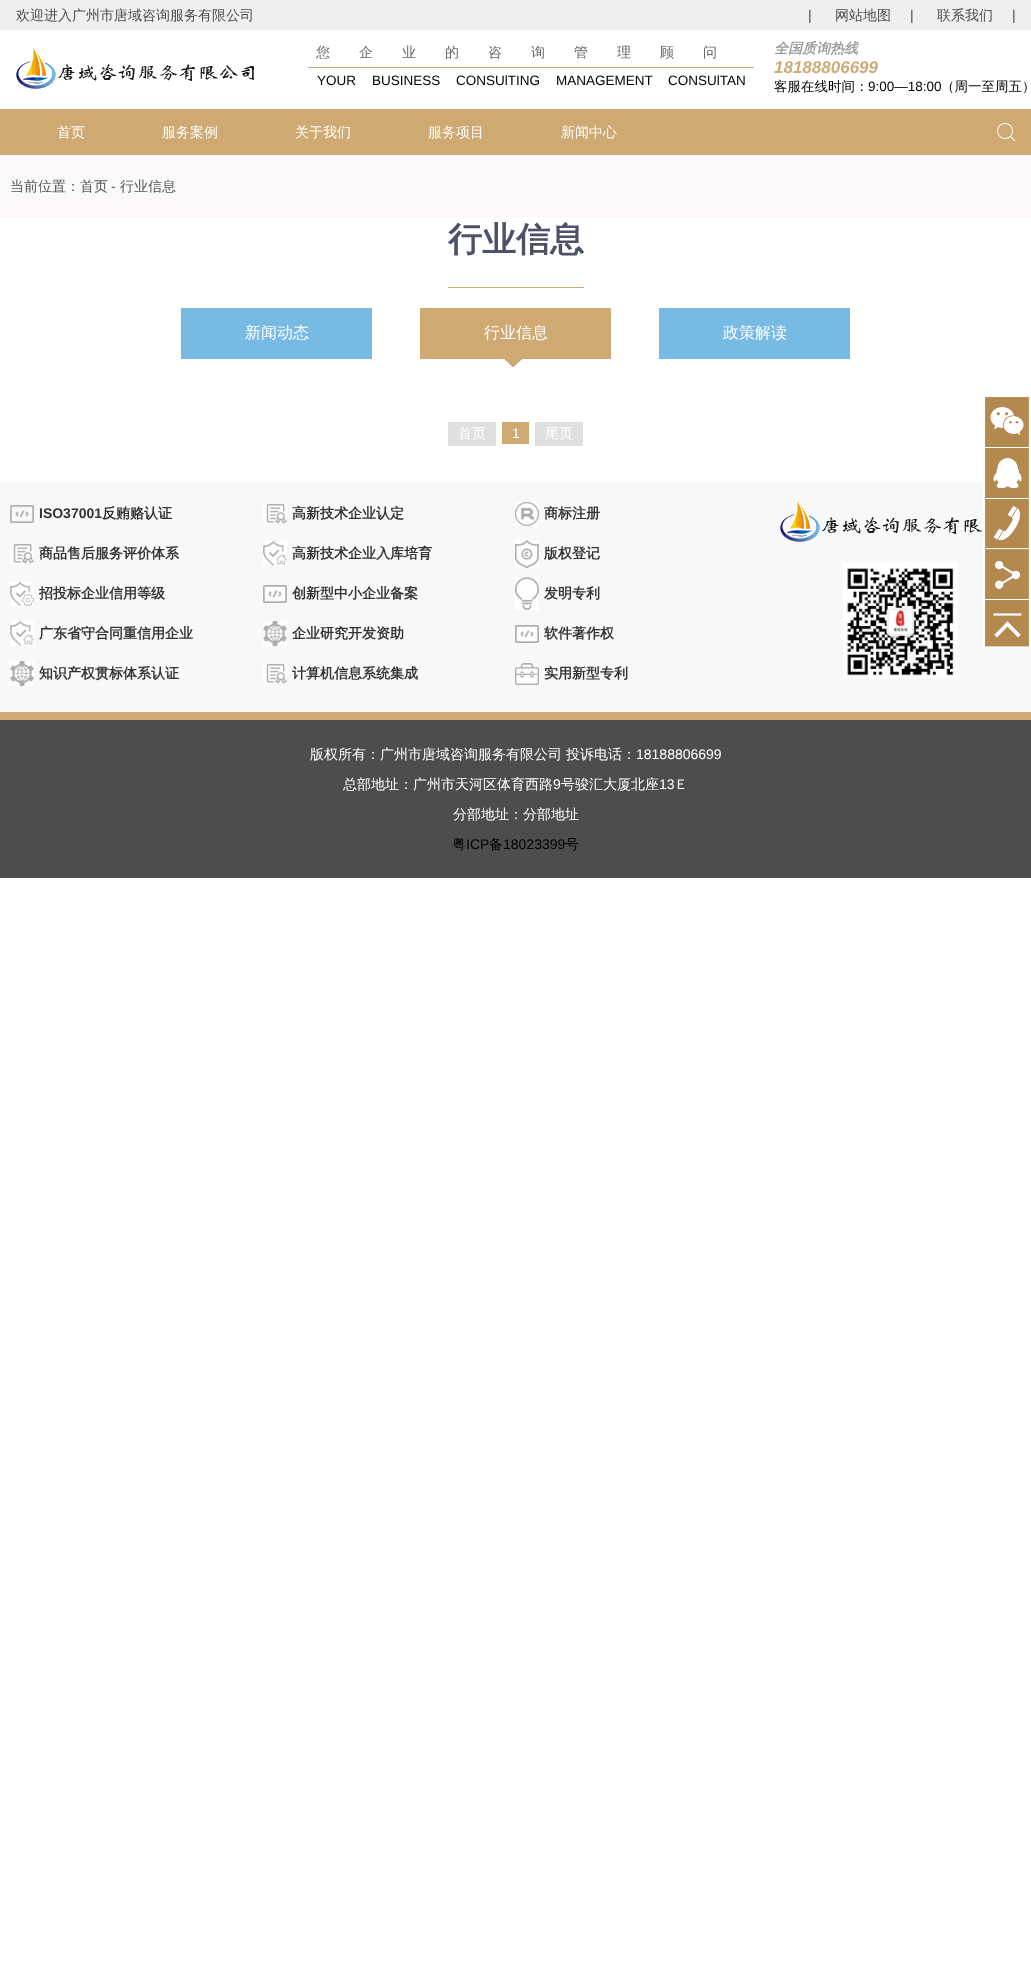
<svg xmlns="http://www.w3.org/2000/svg" width="1031" height="1976">
	<rect width="100%" height="100%" fill="#FFFFFF" />
	<rect x="0" y="0" width="1031" height="30" fill="#EFEFEF" />
	<text x="16" y="20" font-family="WenQuanYi Zen Hei" font-size="14" font-weight="500" fill="#4C4C4C">欢迎进入广州市唐域咨询服务有限公司</text>
	<text x="808" y="20" font-family="Liberation Sans" font-size="14" fill="#4C4C4C">|</text>
	<text x="835" y="20" font-family="WenQuanYi Zen Hei" font-size="14" font-weight="500" fill="#4C4C4C">网站地图</text>
	<text x="910" y="20" font-family="Liberation Sans" font-size="14" fill="#4C4C4C">|</text>
	<text x="937" y="20" font-family="WenQuanYi Zen Hei" font-size="14" font-weight="500" fill="#4C4C4C">联系我们</text>
	<text x="1012" y="20" font-family="Liberation Sans" font-size="14" fill="#4C4C4C">|</text>
	<image x="16" y="49" width="238" height="40" href="assets/img1.png" />
	<rect x="308" y="67" width="446" height="1" fill="#CFA972" />
	<text x="316" y="57" font-family="WenQuanYi Zen Hei" font-size="14" font-weight="500" letter-spacing="29" fill="#666666">您企业的咨询管理顾问</text>
	<g font-family="Liberation Sans" font-size="13.5" fill="#000000">
		<text x="317" y="85">YOUR</text>
		<text x="372" y="85">BUSINESS</text>
		<text x="456" y="85">CONSUlTING</text>
		<text x="556" y="85">MANAGEMENT</text>
		<text x="668" y="85">CONSUlTAN</text>
	</g>
	<text x="774" y="53" font-family="WenQuanYi Zen Hei" font-size="14" font-weight="700" font-style="italic" fill="#9C9C9C">全国质询热线</text>
	<text x="774" y="73" font-family="Liberation Sans" font-size="17" font-weight="700" font-style="italic" fill="#CDAC79">18188806699</text>
	<text x="774" y="91" font-family="WenQuanYi Zen Hei" font-size="13.5" font-weight="500" fill="#000000">客服在线时间：</text>
	<text x="868" y="91" font-family="Liberation Sans" font-size="13.5" fill="#000000">9:00—18:00</text>
	<text x="941" y="91" font-family="WenQuanYi Zen Hei" font-size="13.5" font-weight="500" fill="#000000">（周一至周五）</text>
	<rect x="0" y="109" width="1031" height="46" fill="#CFA972" />
	<g font-family="WenQuanYi Zen Hei" font-size="14" font-weight="500" fill="#FFFFFF">
		<text x="57" y="137">首页</text>
		<text x="162" y="137">服务案例</text>
		<text x="295" y="137">关于我们</text>
		<text x="428" y="137">服务项目</text>
		<text x="561" y="137">新闻中心</text>
	</g>
	<image x="997" y="123" width="19" height="19" href="assets/img2.png" />
	<rect x="0" y="155" width="1031" height="62" fill="#FAF8F9" />
	<text x="10" y="191" font-family="WenQuanYi Zen Hei" font-size="14" font-weight="500" fill="#565656">当前位置：首页</text>
	<text x="111" y="191" font-family="Liberation Sans" font-size="14" fill="#565656">-</text>
	<text x="120" y="191" font-family="WenQuanYi Zen Hei" font-size="14" font-weight="500" fill="#565656">行业信息</text>
	<rect x="448" y="287" width="136" height="1" fill="#CFA972" />
	<text x="448" y="251" font-family="WenQuanYi Zen Hei" font-size="34" font-weight="700" fill="#4C5165">行业信息</text>
	<rect x="181" y="308" width="191" height="51" fill="#77BBE4" />
	<text x="245" y="338" font-family="WenQuanYi Zen Hei" font-size="16" font-weight="500" fill="#FFFFFF">新闻动态</text>
	<image x="420" y="308" width="191" height="59" href="assets/img3.png" />
	<text x="484" y="338" font-family="WenQuanYi Zen Hei" font-size="16" font-weight="500" fill="#FFFFFF">行业信息</text>
	<rect x="659" y="308" width="191" height="51" fill="#77BBE4" />
	<text x="723" y="338" font-family="WenQuanYi Zen Hei" font-size="16" font-weight="500" fill="#FFFFFF">政策解读</text>
	<rect x="448" y="422" width="48" height="24" fill="#E0E0E0" />
	<text x="458" y="438" font-family="WenQuanYi Zen Hei" font-size="14" font-weight="500" fill="#FFFFFF">首页</text>
	<rect x="502" y="422" width="27" height="22" fill="#CFA972" />
	<text x="512" y="438" font-family="Liberation Sans" font-size="14" fill="#FFFFFF">1</text>
	<rect x="535" y="422" width="48" height="24" fill="#E0E0E0" />
	<text x="545" y="438" font-family="WenQuanYi Zen Hei" font-size="14" font-weight="500" fill="#FFFFFF">尾页</text>
	<rect x="0" y="483" width="1031" height="229" fill="#F8F8F8" />
	<image x="10" y="505" width="24" height="18" href="assets/img4.png" />
	<text x="39" y="518" font-family="Liberation Sans" font-size="14" font-weight="700" fill="#333333">ISO37001</text>
	<text x="102" y="518" font-family="WenQuanYi Zen Hei" font-size="14" font-weight="700" fill="#333333">反贿赂认证</text>
	<image x="263" y="504" width="24" height="20" href="assets/img5.png" />
	<text x="292" y="518" font-family="WenQuanYi Zen Hei" font-size="14" font-weight="700" fill="#333333">高新技术企业认定</text>
	<image x="515" y="502" width="24" height="24" href="assets/img6.png" />
	<text x="544" y="518" font-family="WenQuanYi Zen Hei" font-size="14" font-weight="700" fill="#333333">商标注册</text>
	<image x="10" y="544" width="24" height="20" href="assets/img5.png" />
	<text x="39" y="558" font-family="WenQuanYi Zen Hei" font-size="14" font-weight="700" fill="#333333">商品售后服务评价体系</text>
	<image x="263" y="541" width="24" height="25" href="assets/img7.png" />
	<text x="292" y="558" font-family="WenQuanYi Zen Hei" font-size="14" font-weight="700" fill="#333333">高新技术企业入库培育</text>
	<image x="515" y="540" width="24" height="28" href="assets/img8.png" />
	<text x="544" y="558" font-family="WenQuanYi Zen Hei" font-size="14" font-weight="700" fill="#333333">版权登记</text>
	<image x="10" y="582" width="24" height="24" href="assets/img9.png" />
	<text x="39" y="598" font-family="WenQuanYi Zen Hei" font-size="14" font-weight="700" fill="#333333">招投标企业信用等级</text>
	<image x="263" y="585" width="24" height="18" href="assets/img10.png" />
	<text x="292" y="598" font-family="WenQuanYi Zen Hei" font-size="14" font-weight="700" fill="#333333">创新型中小企业备案</text>
	<image x="515" y="577" width="24" height="33" href="assets/img11.png" />
	<text x="544" y="598" font-family="WenQuanYi Zen Hei" font-size="14" font-weight="700" fill="#333333">发明专利</text>
	<image x="10" y="621" width="24" height="25" href="assets/img7.png" />
	<text x="39" y="638" font-family="WenQuanYi Zen Hei" font-size="14" font-weight="700" fill="#333333">广东省守合同重信用企业</text>
	<image x="263" y="621" width="24" height="25" href="assets/img12.png" />
	<text x="292" y="638" font-family="WenQuanYi Zen Hei" font-size="14" font-weight="700" fill="#333333">企业研究开发资助</text>
	<image x="515" y="625" width="24" height="18" href="assets/img10.png" />
	<text x="544" y="638" font-family="WenQuanYi Zen Hei" font-size="14" font-weight="700" fill="#333333">软件著作权</text>
	<image x="10" y="661" width="24" height="25" href="assets/img12.png" />
	<text x="39" y="678" font-family="WenQuanYi Zen Hei" font-size="14" font-weight="700" fill="#333333">知识产权贯标体系认证</text>
	<image x="263" y="664" width="24" height="20" href="assets/img5.png" />
	<text x="292" y="678" font-family="WenQuanYi Zen Hei" font-size="14" font-weight="700" fill="#333333">计算机信息系统集成</text>
	<image x="515" y="663" width="24" height="22" href="assets/img13.png" />
	<text x="544" y="678" font-family="WenQuanYi Zen Hei" font-size="14" font-weight="700" fill="#333333">实用新型专利</text>
	<image x="780" y="502" width="202" height="40" href="assets/img14.png" />
	<image x="843" y="562" width="115" height="116" href="assets/img15.png" />
	<rect x="0" y="720" width="1031" height="158" fill="#4D4D4D" />
	<rect x="0" y="712" width="1031" height="8" fill="#CEA975" />
	<g font-family="WenQuanYi Zen Hei" font-size="14" font-weight="500" fill="#FFFFFF">
		<text x="310" y="759">版权所有：广州市唐域咨询服务有限公司</text>
		<text x="566" y="759">投诉电话：</text>
	</g>
	<text x="636" y="759" font-family="Liberation Sans" font-size="14" fill="#FFFFFF">18188806699</text>
	<text x="343" y="789" font-family="WenQuanYi Zen Hei" font-size="14" font-weight="500" fill="#FFFFFF">总部地址：广州市天河区体育西路</text>
	<text x="553" y="789" font-family="Liberation Sans" font-size="14" fill="#FFFFFF">9</text>
	<text x="561" y="789" font-family="WenQuanYi Zen Hei" font-size="14" font-weight="500" fill="#FFFFFF">号骏汇大厦北座</text>
	<text x="659" y="789" font-family="Liberation Sans" font-size="14" fill="#FFFFFF">13</text>
	<g font-family="WenQuanYi Zen Hei" font-size="14" font-weight="500" fill="#FFFFFF">
		<text x="674" y="789">Ｅ</text>
		<text x="453" y="819">分部地址：分部地址</text>
	</g>
	<text x="452" y="849" font-family="WenQuanYi Zen Hei" font-size="14" font-weight="500" fill="#000000">粤</text>
	<text x="466" y="849" font-family="Liberation Sans" font-size="14" fill="#000000">ICP</text>
	<text x="489" y="849" font-family="WenQuanYi Zen Hei" font-size="14" font-weight="500" fill="#000000">备</text>
	<text x="503" y="849" font-family="Liberation Sans" font-size="14" fill="#000000">18023399</text>
	<text x="565" y="849" font-family="WenQuanYi Zen Hei" font-size="14" font-weight="500" fill="#000000">号</text>
	<image x="983" y="397" width="48" height="251" href="assets/img16.png" />
</svg>
